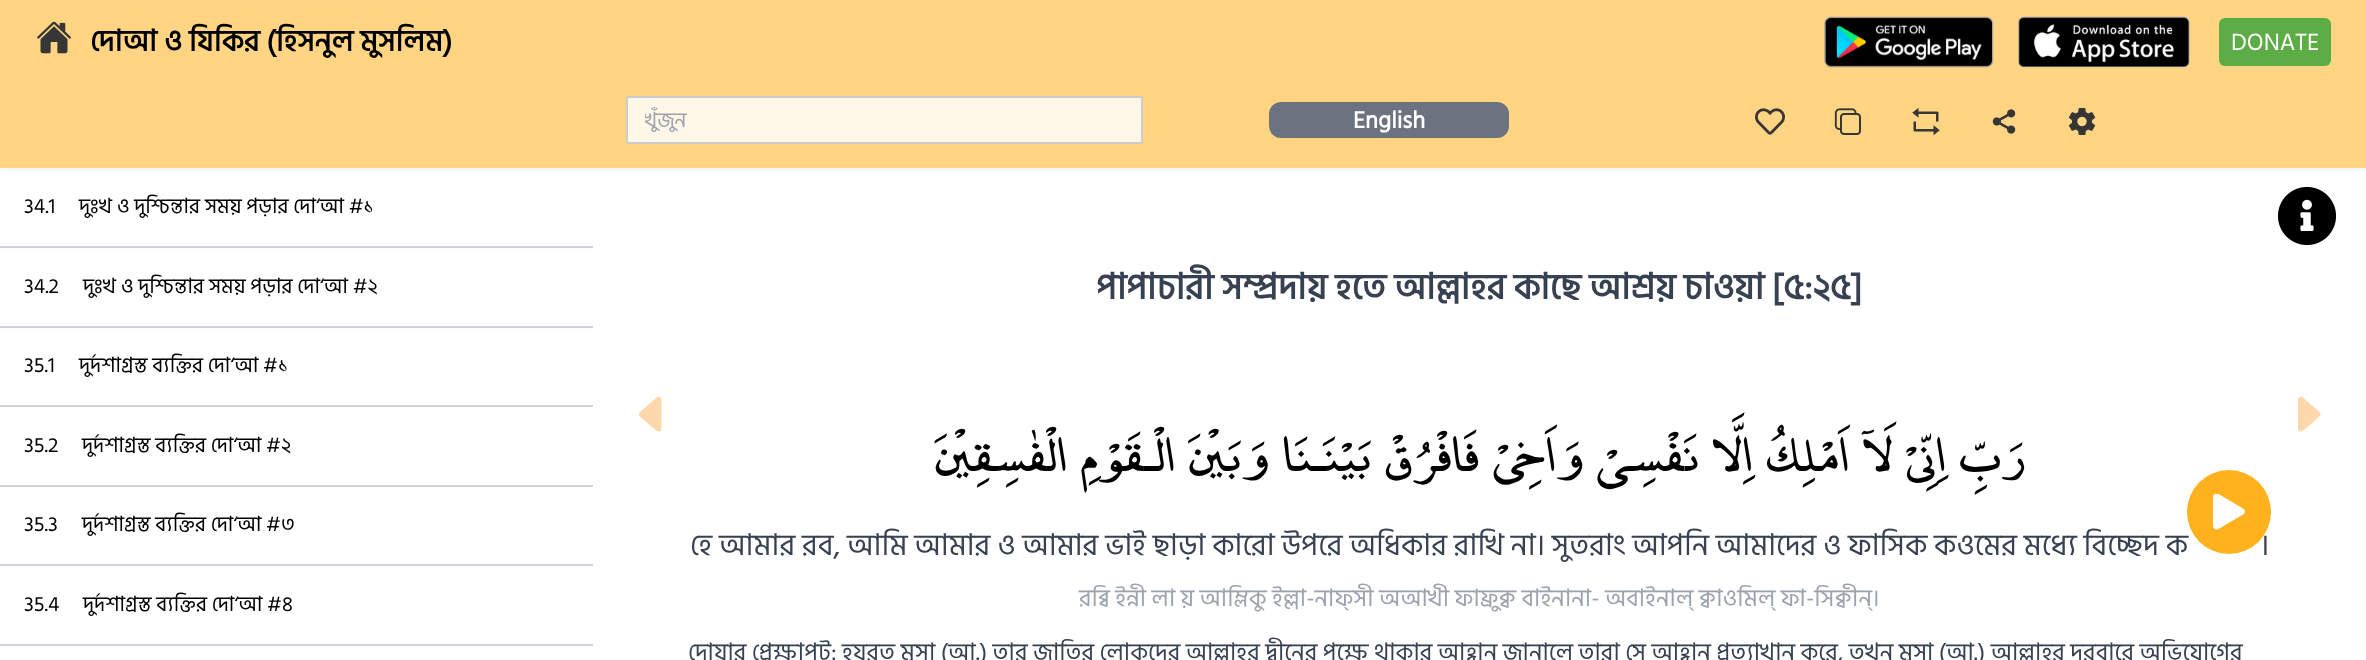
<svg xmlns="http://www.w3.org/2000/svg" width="2366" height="660">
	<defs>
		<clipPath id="clip1"><rect x="645" y="104" width="479" height="34" /></clipPath>
		<clipPath id="clip2"><rect x="2211" y="494" width="36" height="36" /></clipPath>
	</defs>
	<rect width="100%" height="100%" fill="#FFFFFF" />
	<rect x="0" y="2" width="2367" height="168" fill="#000000" fill-opacity="0.05" filter="blur(1.5px)" />
	<rect x="0" y="0" width="2366" height="168" fill="#FFD583" />
	<image x="37" y="21" width="34" height="33" href="assets/img1.png" />
	<text x="90" y="51" font-family="Hind Siliguri" font-size="30" font-weight="700" fill="#000000">দোআ ও যিকির (হিসনুল মুসলিম)</text>
	<image x="1824" y="16" width="170" height="52" href="assets/img2.png" />
	<image x="2018" y="16" width="172" height="52" href="assets/img3.png" />
	<rect x="2219" y="18" width="112" height="48" rx="6" fill="#5DAD47" />
	<text x="2231" y="50" font-family="Hind Siliguri" font-size="24" fill="#FFFFFF">DONATE</text>
	<rect x="627" y="97" width="515" height="46" rx="2" fill="#FFF8E9" stroke="#CCCCCC" stroke-width="2" />
	<g clip-path="url(#clip1)">
		<text x="644" y="127" font-family="Hind Siliguri" font-size="21" fill="#9CA3AF">খুঁজুন</text>
	</g>
	<rect x="1269" y="102" width="240" height="36" rx="12" fill="#6B7280" />
	<text x="1353" y="128" font-family="Hind Siliguri" font-size="24" font-weight="700" fill="#FFFFFF">English</text>
	<image x="1755" y="108" width="30" height="27" href="assets/img4.png" />
	<image x="1834" y="108" width="27" height="27" href="assets/img5.png" />
	<image x="1912" y="107" width="28" height="29" href="assets/img6.png" />
	<image x="1992" y="109" width="24" height="25" href="assets/img7.png" />
	<image x="2068" y="108" width="28" height="27" href="assets/img8.png" />
	<rect x="0" y="246" width="593" height="2" fill="#D1D5DB" />
	<g font-family="Hind Siliguri" font-size="21" fill="#000000">
		<text x="24" y="213">34.1</text>
		<text x="79" y="213">দুঃখ ও দুশ্চিন্তার সময় পড়ার দো‘আ #১</text>
	</g>
	<rect x="0" y="326" width="593" height="2" fill="#D1D5DB" />
	<g font-family="Hind Siliguri" font-size="21" fill="#000000">
		<text x="24" y="293">34.2</text>
		<text x="83" y="293">দুঃখ ও দুশ্চিন্তার সময় পড়ার দো‘আ #২</text>
	</g>
	<rect x="0" y="405" width="593" height="2" fill="#D1D5DB" />
	<g font-family="Hind Siliguri" font-size="21" fill="#000000">
		<text x="24" y="372">35.1</text>
		<text x="79" y="372">দুর্দশাগ্রস্ত ব্যক্তির দো‘আ #১</text>
	</g>
	<rect x="0" y="485" width="593" height="2" fill="#D1D5DB" />
	<g font-family="Hind Siliguri" font-size="21" fill="#000000">
		<text x="24" y="452">35.2</text>
		<text x="82" y="452">দুর্দশাগ্রস্ত ব্যক্তির দো‘আ #২</text>
	</g>
	<rect x="0" y="564" width="593" height="2" fill="#D1D5DB" />
	<g font-family="Hind Siliguri" font-size="21" fill="#000000">
		<text x="24" y="531">35.3</text>
		<text x="82" y="531">দুর্দশাগ্রস্ত ব্যক্তির দো‘আ #৩</text>
	</g>
	<rect x="0" y="644" width="593" height="2" fill="#D1D5DB" />
	<g font-family="Hind Siliguri" font-size="21" fill="#000000">
		<text x="24" y="611">35.4</text>
		<text x="83" y="611">দুর্দশাগ্রস্ত ব্যক্তির দো‘আ #৪</text>
	</g>
	<path d="M640 416.5L651 426C652.5 427 659.5 435 661.5 429.5V399L660.5 397.5C658 395 655.5 398.5 654 400L643 409.5C641 411 637 413.5 640 416.5Z" fill="#FED7AA" />
	<text x="1096" y="299" font-family="Hind Siliguri" font-size="36" font-weight="700" fill="#374151">পাপাচারী সম্প্রদায় হতে আল্লাহর কাছে আশ্রয় চাওয়া [৫:২৫]</text>
	<text x="2025" y="471" font-family="'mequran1'" font-size="45.6" direction="rtl" fill="#000000">رَبِّ اِنِّىۡ لَاۤ اَمۡلِكُ اِلَّا نَفۡسِىۡ وَاَخِىۡ‌ فَافۡرُقۡ بَيۡنَـنَا وَبَيۡنَ الۡـقَوۡمِ الۡفٰسِقِيۡنَ</text>
	<g font-family="Hind Siliguri" font-size="30" fill="#374151">
		<text x="690" y="555">হে আমার রব, আমি আমার ও আমার ভাই ছাড়া কারো উপরে অধিকার রাখি না। সুতরাং আপনি আমাদের ও ফাসিক কওমের মধ্যে বিচ্ছেদ ক</text>
		<text x="2260" y="555">।</text>
	</g>
	<text x="1079" y="606" font-family="Hind Siliguri" font-size="24" fill="#9CA3AF">রব্বি ইন্নী লা য় আম্লিকু ইল্লা-নাফ্সী অআখী ফাফ্রুক্ব বাইনানা- অবাইনাল্ ক্বাওমিল্ ফা-সিক্বীন্।</text>
	<text x="688" y="660" font-family="Hind Siliguri" font-size="24" fill="#374151">দোয়ার প্রেক্ষাপট: হযরত মূসা (আ.) তার জাতির লোকদের আল্লাহর দ্বীনের পক্ষে থাকার আহ্বান জানালে তারা সে আহ্বান প্রত্যাখান করে, তখন মূসা (আ.) আল্লাহর দরবারে অভিযোগের</text>
	<path d="M2319.5 416.5L2308.5 426C2307 427 2300 435 2298 429.5V399L2299 397.5C2301.5 395 2304 398.5 2305.5 400L2316.5 409.5C2318.5 411 2322.5 413.5 2319.5 416.5Z" fill="#FED7AA" />
	<circle cx="2229" cy="512" r="42" fill="#FFB21D" />
	<g clip-path="url(#clip2)">
		<path d="M2243 508.5L2218.5 494C2216.5 493 2213 494 2213 497V526C2213 529 2216 530.5 2218.5 529L2243 514.5C2245.5 513 2245.5 510 2243 508.5Z" fill="#FFFFFF" />
	</g>
	<image x="2277" y="186" width="60" height="60" href="assets/img9.png" />
</svg>
